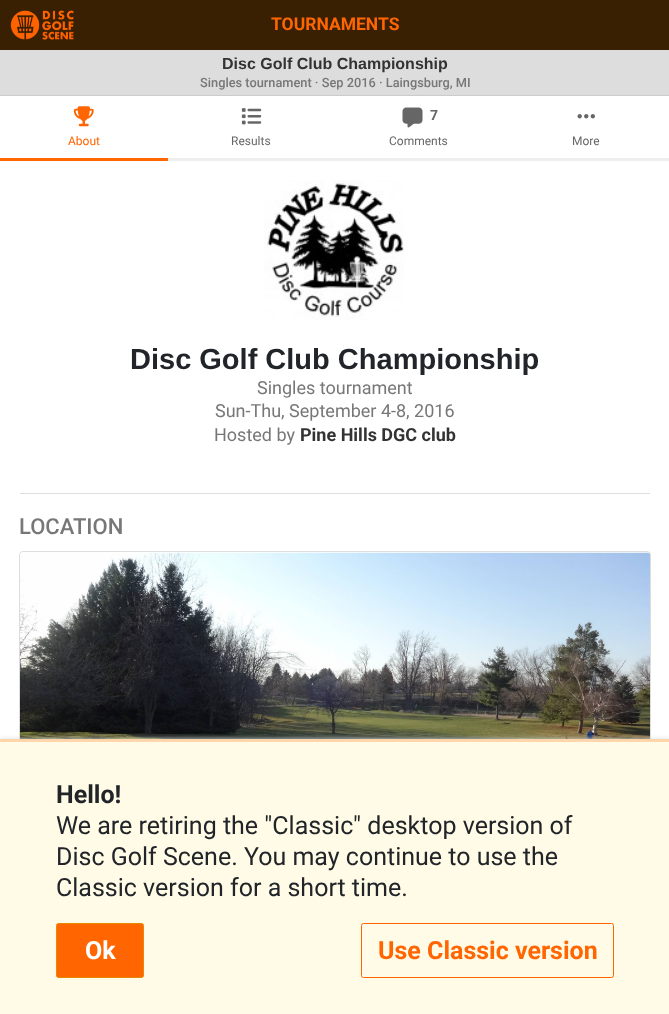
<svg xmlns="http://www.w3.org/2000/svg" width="669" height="1014">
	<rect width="100%" height="100%" fill="#FFFFFF" />
	<rect x="0" y="0" width="669" height="50" fill="#3A2002" />
	<image x="10" y="10" width="64" height="30" href="assets/img1.png" />
	<text x="271" y="30" font-family="Roboto" font-size="17.5" font-weight="700" fill="#FF6500">TOURNAMENTS</text>
	<rect x="0" y="50" width="669" height="45" fill="#DDDDDD" />
	<rect x="0" y="95" width="669" height="1" fill="#CCCCCC" />
	<text x="222" y="69" font-family="Liberation Sans" font-size="16" font-weight="700" fill="#333333">Disc Golf Club Championship</text>
	<text x="200" y="87" font-family="Roboto" font-size="12.8" font-weight="500" fill="#777777">Singles tournament · Sep 2016 · Laingsburg, MI</text>
	<rect x="0" y="158" width="168" height="3" fill="#FF6500" />
	<image x="73" y="106" width="21" height="21" href="assets/img2.png" />
	<text x="68" y="145" font-family="Roboto" font-size="12" fill="#FF6500">About</text>
	<rect x="168" y="158" width="501" height="3" fill="#EEEEEE" />
	<image x="241" y="108" width="21" height="17" href="assets/img3.png" />
	<text x="231" y="145" font-family="Roboto" font-size="12" fill="#666666">Results</text>
	<image x="402" y="107" width="21" height="21" href="assets/img4.png" />
	<text x="430" y="120" font-family="Roboto" font-size="14" font-weight="700" fill="#666666">7</text>
	<text x="389" y="145" font-family="Roboto" font-size="12" fill="#666666">Comments</text>
	<image x="577" y="114" width="18" height="5" href="assets/img5.png" />
	<text x="572" y="145" font-family="Roboto" font-size="12" fill="#666666">More</text>
	<rect x="20" y="493" width="630" height="1" fill="#DDDDDD" />
	<image x="264" y="180" width="140" height="140" href="assets/img6.png" />
	<text x="130" y="369" font-family="Liberation Sans" font-size="29" font-weight="700" fill="#212529">Disc Golf Club Championship</text>
	<g font-family="Roboto" font-size="18" fill="#777777">
		<text x="257" y="394">Singles tournament</text>
		<text x="215" y="417">Sun-Thu, September 4-8, 2016</text>
		<text x="214" y="441">Hosted by</text>
	</g>
	<text x="300" y="441" font-family="Roboto" font-size="18" font-weight="700" fill="#333333">Pine Hills DGC club</text>
	<text x="19" y="534" font-family="Roboto" font-size="22" font-weight="500" fill="#777777">LOCATION</text>
	<rect x="19.5" y="551.5" width="631" height="334" rx="3.5" fill="none" stroke="#DDDDDD" />
	<image x="20" y="552" width="630" height="187" href="assets/img7.png" />
	<rect x="0" y="739" width="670" height="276" fill="#DDDDDD" filter="blur(2.5px)" />
	<rect x="0" y="742" width="669" height="272" fill="#FFFBE6" />
	<rect x="0" y="739" width="669" height="3" fill="#FFD5AC" />
	<text x="56" y="803" font-family="Roboto" font-size="25" font-weight="700" fill="#212529">Hello!</text>
	<g font-family="Roboto" font-size="25" fill="#212529">
		<text x="56" y="834">We are retiring the "Classic" desktop version of</text>
		<text x="56" y="865">Disc Golf Scene. You may continue to use the</text>
		<text x="56" y="896">Classic version for a short time.</text>
	</g>
	<rect x="56.5" y="923.5" width="87" height="54" rx="2" fill="#FF6500" stroke="#E58900" />
	<text x="85" y="959" font-family="Roboto" font-size="25" font-weight="700" fill="#FFFFFF">Ok</text>
	<rect x="361.5" y="923.5" width="252" height="54" rx="2" fill="none" stroke="#FF6500" />
	<text x="378" y="959" font-family="Roboto" font-size="25" font-weight="700" fill="#FF6500">Use Classic version</text>
</svg>
